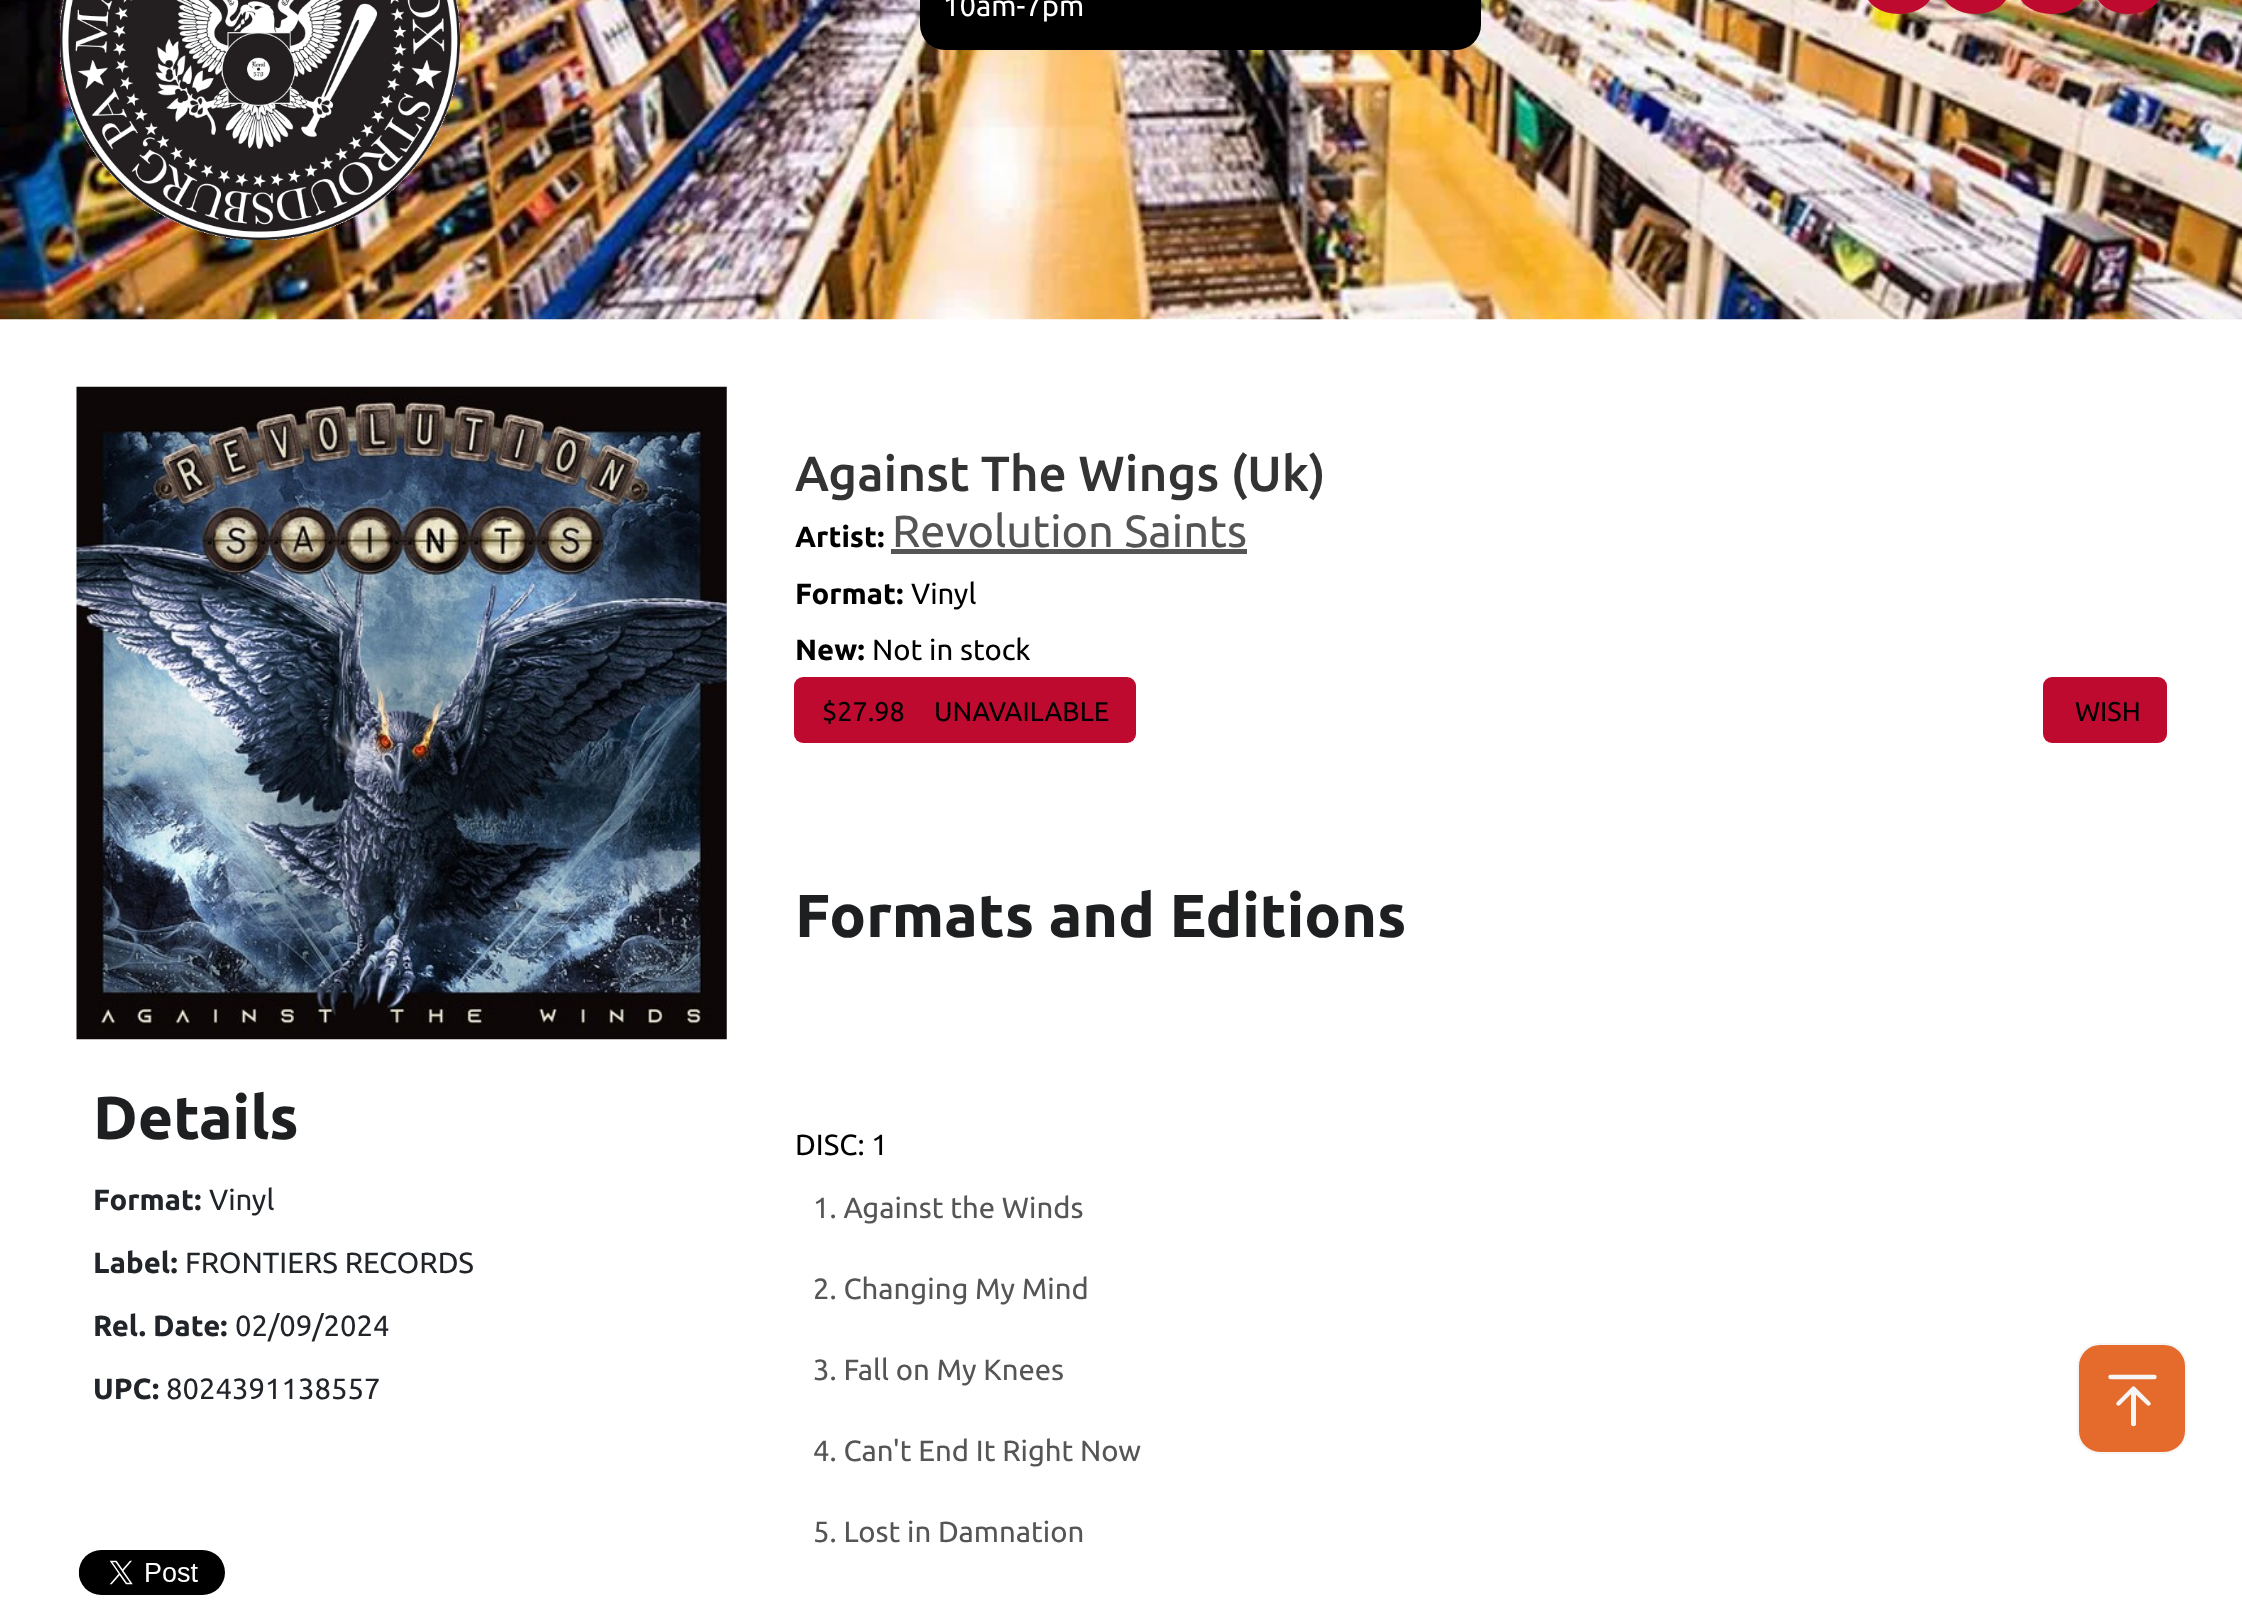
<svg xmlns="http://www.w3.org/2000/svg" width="2242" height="1600">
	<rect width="100%" height="100%" fill="#FFFFFF" />
	<image x="0" y="0" width="2242" height="320" href="assets/img1.png" />
	<image x="59" y="0" width="401" height="240" href="assets/img2.png" />
	<rect x="920" y="-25" width="561" height="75" rx="25" fill="#000000" />
	<text x="943" y="16" font-family="Ubuntu" font-size="29.25" fill="#FFFFFF">10am-7pm</text>
	<rect x="1865" y="-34" width="68" height="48" rx="34" fill="#BF0A30" />
	<rect x="1942" y="-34" width="67" height="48" rx="33.5" fill="#BF0A30" />
	<rect x="2018" y="-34" width="68" height="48" rx="34" fill="#BF0A30" />
	<rect x="2095" y="-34" width="67" height="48" rx="33.5" fill="#BF0A30" />
	<image x="76" y="386" width="651" height="654" href="assets/img3.png" />
	<text x="93" y="1139" font-family="Ubuntu" font-size="60.75" font-weight="700" fill="#1D1F20">Details</text>
	<text x="93" y="1210" font-family="Ubuntu" font-size="29.25" font-weight="700" fill="#212529">Format:</text>
	<text x="209" y="1210" font-family="Ubuntu" font-size="29.25" fill="#212529">Vinyl</text>
	<text x="93" y="1273" font-family="Ubuntu" font-size="29.25" font-weight="700" fill="#212529">Label:</text>
	<text x="185" y="1273" font-family="Ubuntu" font-size="29.25" fill="#212529">FRONTIERS RECORDS</text>
	<text x="93" y="1336" font-family="Ubuntu" font-size="29.25" font-weight="700" fill="#212529">Rel. Date:</text>
	<text x="235" y="1336" font-family="Ubuntu" font-size="29.25" fill="#212529">02/09/2024</text>
	<text x="93" y="1399" font-family="Ubuntu" font-size="29.25" font-weight="700" fill="#212529">UPC:</text>
	<text x="166" y="1399" font-family="Ubuntu" font-size="29.25" fill="#212529">8024391138557</text>
	<image x="78" y="1550" width="147" height="45" href="assets/img4.png" />
	<text x="795" y="491" font-family="Ubuntu" font-size="49.5" font-weight="500" fill="#333333">Against The Wings (Uk)</text>
	<text x="795" y="547" font-family="Ubuntu" font-size="29.25" font-weight="700" fill="#000000">Artist:</text>
	<rect x="891" y="549" width="356" height="5" fill="#555555" />
	<text x="892" y="547" font-family="Ubuntu" font-size="45" fill="#555555">Revolution Saints</text>
	<text x="795" y="604" font-family="Ubuntu" font-size="29.25" font-weight="700" fill="#000000">Format:</text>
	<text x="911" y="604" font-family="Ubuntu" font-size="29.25" fill="#000000">Vinyl</text>
	<text x="795" y="660" font-family="Ubuntu" font-size="29.25" font-weight="700" fill="#000000">New:</text>
	<text x="872" y="660" font-family="Ubuntu" font-size="29.25" fill="#000000">Not in stock</text>
	<rect x="794" y="677" width="342" height="66" rx="9" fill="#BF0A30" />
	<g font-family="Ubuntu" font-size="27" fill="#000000">
		<text x="822" y="721">$27.98</text>
		<text x="934" y="721">UNAVAILABLE</text>
	</g>
	<rect x="2043" y="677" width="124" height="66" rx="9" fill="#BF0A30" />
	<text x="2075" y="721" font-family="Ubuntu" font-size="27" fill="#000000">WISH</text>
	<text x="795" y="937" font-family="Ubuntu" font-size="60.75" font-weight="700" fill="#1D1F20">Formats and Editions</text>
	<text x="795" y="1155" font-family="Ubuntu" font-size="29.25" fill="#000000">DISC: 1</text>
	<g font-family="Ubuntu" font-size="29.25" fill="#555555">
		<text x="813" y="1218">1. Against the Winds</text>
		<text x="813" y="1299">2. Changing My Mind</text>
		<text x="813" y="1380">3. Fall on My Knees</text>
		<text x="813" y="1461">4. Can't End It Right Now</text>
		<text x="813" y="1542">5. Lost in Damnation</text>
	</g>
	<rect x="2078" y="1344" width="108" height="109" rx="22" fill="#E56B2C" stroke="#F5F5F5" stroke-width="2" />
	<path d="M2110.5 1377H2154.5" fill="none" stroke="#F5F5F5" stroke-width="4.4" stroke-linecap="round" />
	<path d="M2131 1424C2131 1427 2136 1427 2136 1424ZM2135 1387C2134 1386 2133 1386 2132 1387L2117 1402C2116 1403 2116 1405 2117 1405C2118 1406 2119 1406 2120 1405L2133 1392L2147 1405C2148 1406 2149 1406 2150 1405C2151 1405 2151 1403 2150 1402ZM2136 1424V1389H2131V1424Z" fill="#F5F5F5" />
</svg>
